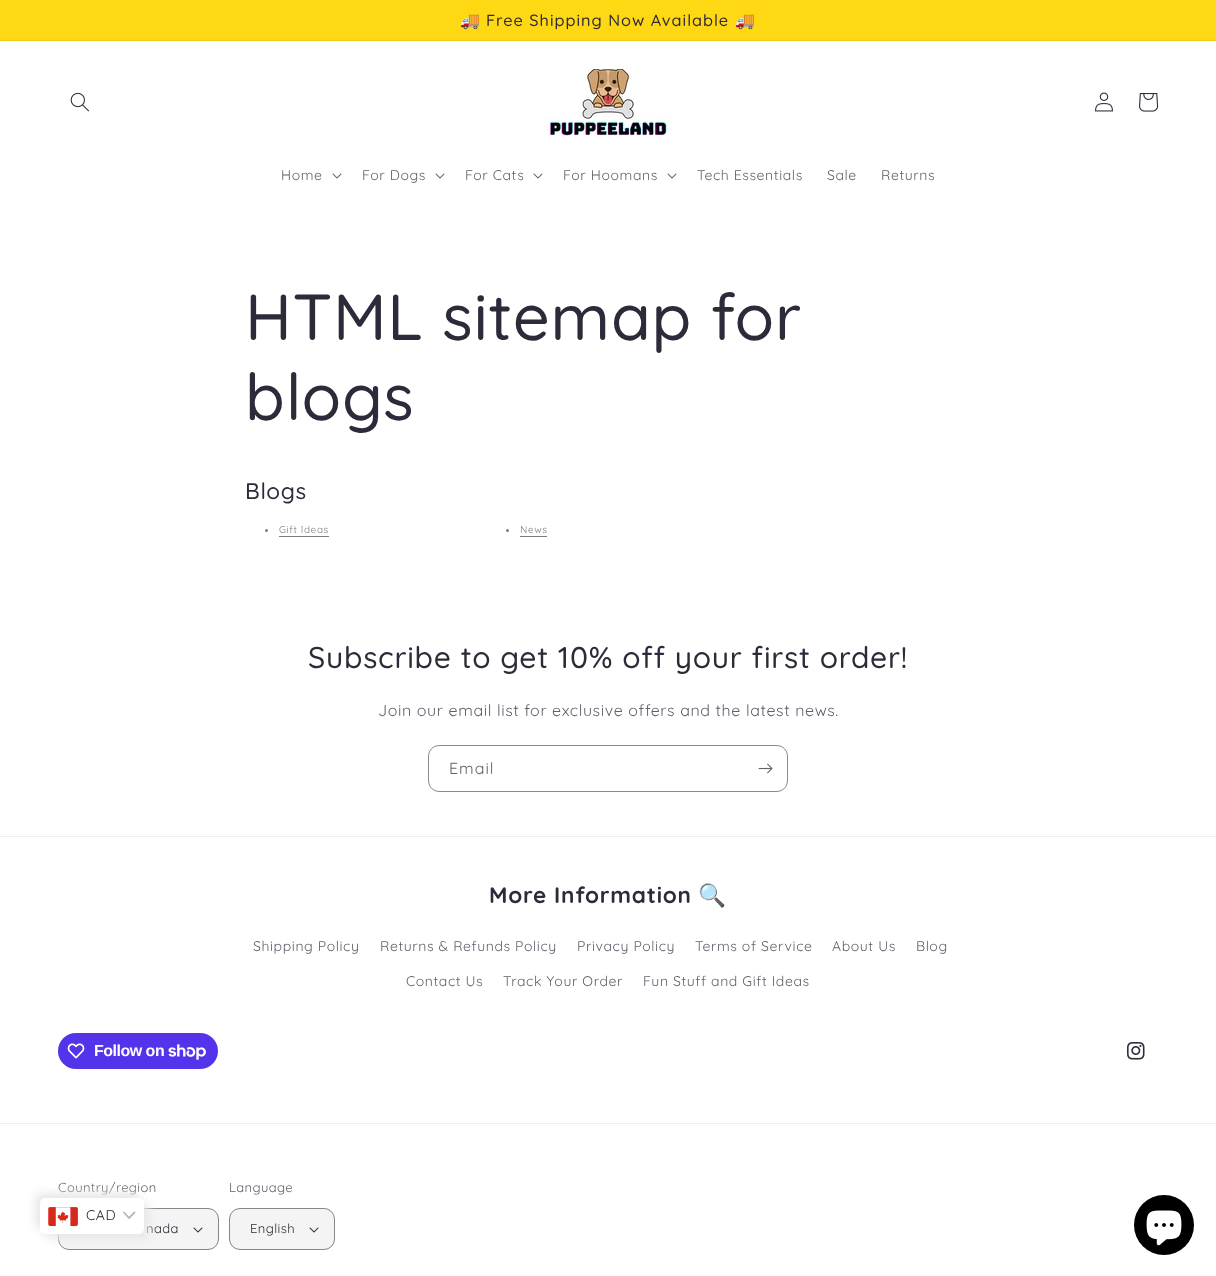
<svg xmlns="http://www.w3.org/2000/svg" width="1216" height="1276">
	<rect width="100%" height="100%" fill="#FFFFFF" />
	<rect x="0" y="0" width="1216" height="40" fill="#FFD814" />
	<rect x="0" y="40" width="1216" height="1" fill="#EECA17" />
	<text x="460" y="26" font-family="Noto Color Emoji" font-size="16.25" letter-spacing="1" fill="#2E2A39">🚚</text>
	<text x="486" y="26" font-family="Quicksand" font-size="16.25" font-weight="500" letter-spacing="1" fill="#2E2A39">Free Shipping Now Available</text>
	<text x="735" y="26" font-family="Noto Color Emoji" font-size="16.25" letter-spacing="1" fill="#2E2A39">🚚</text>
	<image x="70" y="92" width="19" height="20" href="assets/img1.png" />
	<image x="545" y="69" width="125" height="67" href="assets/img2.png" />
	<image x="1095" y="92" width="18" height="20" href="assets/img3.png" />
	<image x="1139" y="93" width="20" height="19" href="assets/img4.png" />
	<text x="281" y="180" font-family="Quicksand" font-size="14" letter-spacing="0.6" fill="#625F6B">Home</text>
	<image x="332" y="173" width="10" height="6" href="assets/img5.png" />
	<text x="362" y="180" font-family="Quicksand" font-size="14" letter-spacing="0.6" fill="#625F6B">For Dogs</text>
	<image x="435" y="173" width="10" height="6" href="assets/img5.png" />
	<text x="465" y="180" font-family="Quicksand" font-size="14" letter-spacing="0.6" fill="#625F6B">For Cats</text>
	<image x="533" y="173" width="10" height="6" href="assets/img5.png" />
	<text x="563" y="180" font-family="Quicksand" font-size="14" letter-spacing="0.6" fill="#625F6B">For Hoomans</text>
	<image x="667" y="173" width="10" height="6" href="assets/img5.png" />
	<g font-family="Quicksand" font-size="14" letter-spacing="0.6" fill="#625F6B">
		<text x="697" y="180">Tech Essentials</text>
		<text x="827" y="180">Sale</text>
		<text x="881" y="180">Returns</text>
	</g>
	<g font-family="Quicksand" font-size="65" font-weight="500" letter-spacing="0.75" fill="#2E2A39">
		<text x="245" y="340">HTML sitemap for</text>
		<text x="245" y="420">blogs</text>
	</g>
	<text x="245" y="499" font-family="Quicksand" font-size="22.5" font-weight="500" letter-spacing="0.75" fill="#2E2A39">Blogs</text>
	<circle cx="266.5" cy="530.5" r="1.5" fill="#7C7C7C" />
	<text x="279" y="533" font-family="Quicksand" font-size="10" letter-spacing="0.6" fill="#7C7C7C">Gift Ideas</text>
	<rect x="279" y="536" width="50" height="1" fill="#7C7C7C" />
	<circle cx="507.5" cy="530.5" r="1.5" fill="#7C7C7C" />
	<text x="520" y="533" font-family="Quicksand" font-size="10" letter-spacing="0.6" fill="#7C7C7C">News</text>
	<rect x="520" y="536" width="27" height="1" fill="#7C7C7C" />
	<text x="308" y="668" font-family="Quicksand" font-size="30" font-weight="500" letter-spacing="0.75" fill="#2E2A39">Subscribe to get 10% off your first order!</text>
	<text x="378" y="716" font-family="Quicksand" font-size="16" letter-spacing="0.6" fill="#625F6B">Join our email list for exclusive offers and the latest news.</text>
	<rect x="428.5" y="745.5" width="359" height="46" rx="10.5" fill="none" stroke="#8C8A92" />
	<text x="449" y="774" font-family="Quicksand" font-size="16" letter-spacing="1" fill="#625F6B">Email</text>
	<image x="758" y="763" width="15" height="11" href="assets/img6.png" />
	<rect x="0" y="836" width="1216" height="1" fill="#EEEEEF" />
	<text x="489" y="903" font-family="Quicksand" font-size="22.5" font-weight="700" letter-spacing="0.75" fill="#2E2A39">More Information</text>
	<text x="698" y="903" font-family="Noto Color Emoji" font-size="22.5" font-weight="700" letter-spacing="0.75" fill="#2E2A39">🔍</text>
	<g font-family="Quicksand" font-size="14" letter-spacing="0.6" fill="#625F6B">
		<text x="253" y="951">Shipping Policy</text>
		<text x="380" y="951">Returns &amp; Refunds Policy</text>
		<text x="577" y="951">Privacy Policy</text>
		<text x="695" y="951">Terms of Service</text>
		<text x="832" y="951">About Us</text>
		<text x="916" y="951">Blog</text>
		<text x="406" y="986">Contact Us</text>
		<text x="503" y="986">Track Your Order</text>
		<text x="643" y="986">Fun Stuff and Gift Ideas</text>
	</g>
	<rect x="58" y="1033" width="160" height="36" rx="18" fill="#5433EB" />
	<image x="67" y="1043" width="18" height="16" href="assets/img7.png" />
	<text x="94" y="1056" font-family="Liberation Sans" font-size="16" font-weight="700" letter-spacing="-0.5" fill="#FFFFFF">Follow on</text>
	<image x="168" y="1044" width="38" height="16" href="assets/img8.png" />
	<image x="1127" y="1042" width="18" height="18" href="assets/img9.png" />
	<rect x="0" y="1123" width="1216" height="1" fill="#EEEEEF" />
	<text x="58" y="1192" font-family="Quicksand" font-size="13" letter-spacing="0.4" fill="#625F6B">Country/region</text>
	<rect x="58" y="1208" width="161" height="42" rx="11" fill="#F4F4F4" />
	<image x="193" y="1227" width="10" height="6" href="assets/img10.png" />
	<rect x="58.5" y="1208.5" width="160" height="41" rx="10.5" fill="none" stroke="#2E2A39" stroke-opacity="0.55" />
	<text x="146" y="1233" font-family="Quicksand" font-size="13" letter-spacing="0.4" fill="#2E2A39">nada</text>
	<text x="229" y="1192" font-family="Quicksand" font-size="13" letter-spacing="0.4" fill="#625F6B">Language</text>
	<rect x="229" y="1208" width="106" height="42" rx="11" fill="#F4F4F4" />
	<image x="309" y="1227" width="10" height="6" href="assets/img10.png" />
	<rect x="229.5" y="1208.5" width="105" height="41" rx="10.5" fill="none" stroke="#2E2A39" stroke-opacity="0.55" />
	<text x="250" y="1233" font-family="Quicksand" font-size="13" letter-spacing="0.4" fill="#2E2A39">English</text>
	<circle cx="1164" cy="1225" r="30" fill="#000000" />
	<image x="1146" y="1210" width="36" height="36" href="assets/img11.png" />
	<rect x="35" y="1193" width="104" height="36" rx="5" fill="#E8E8E8" filter="blur(5px)" />
	<rect x="45" y="1203" width="104" height="36" rx="5" fill="#E8E8E8" filter="blur(5px)" />
	<rect x="40" y="1198" width="104" height="36" rx="5" fill="#FFFFFF" />
	<image x="48" y="1207" width="30" height="19" href="assets/img12.png" />
	<text x="86" y="1220" font-family="Quicksand" font-size="14" letter-spacing="0.6" fill="#1E1E1E">CAD</text>
	<path d="M124 1212.5L129 1218L134.5 1212.5" fill="none" stroke="#B7B7B7" stroke-width="1.8" stroke-linecap="round" stroke-linejoin="round" />
</svg>
